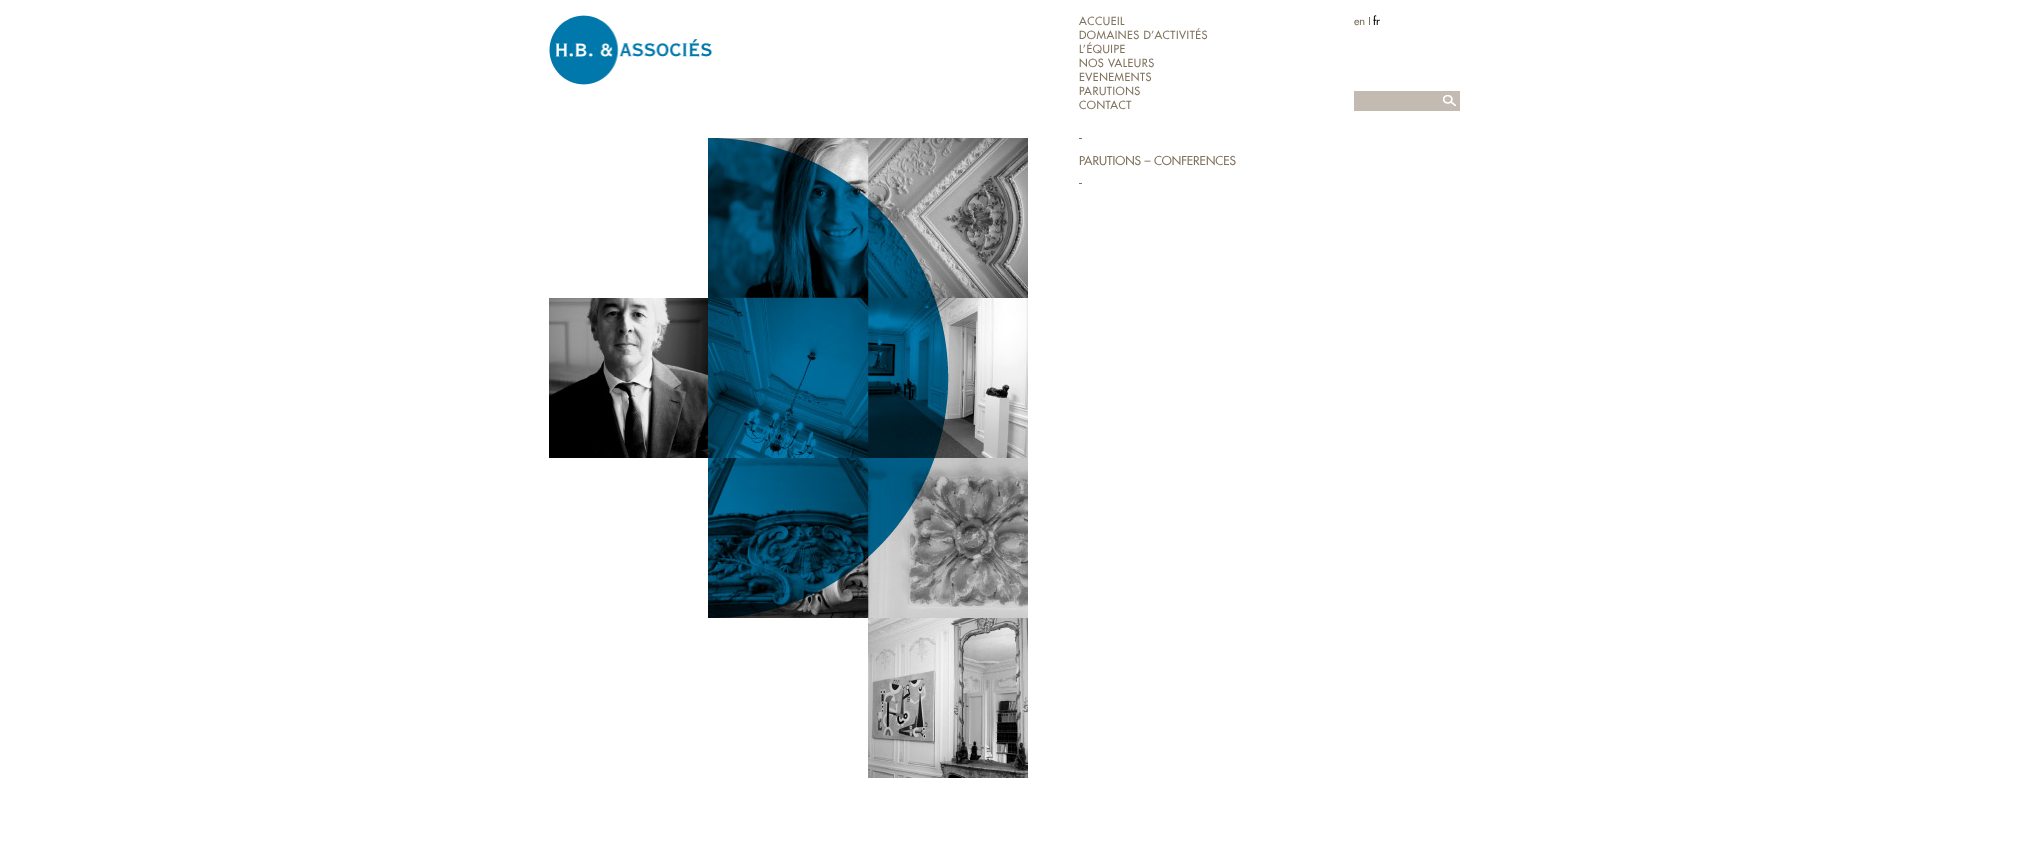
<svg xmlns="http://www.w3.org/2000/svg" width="2037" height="863">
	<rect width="100%" height="100%" fill="#FFFFFF" />
	<image x="549" y="15" width="163" height="70" href="assets/img1.png" />
	<g font-family="Futura" font-size="11" font-weight="500" letter-spacing="0.55" fill="#81725E">
		<text x="1079" y="25">ACCUEIL</text>
		<text x="1079" y="39">DOMAINES D’ACTIVITÉS</text>
		<text x="1079" y="53">L’ÉQUIPE</text>
		<text x="1079" y="67">NOS VALEURS</text>
		<text x="1079" y="81">EVENEMENTS</text>
		<text x="1079" y="95">PARUTIONS</text>
		<text x="1079" y="109">CONTACT</text>
	</g>
	<text x="1354" y="25" font-family="Futura" font-size="11" font-weight="500" fill="#81725E">en</text>
	<rect x="1369" y="17" width="1" height="8" fill="#81725E" />
	<text x="1373" y="25" font-family="Futura" font-size="11" font-weight="500" fill="#000000">fr</text>
	<rect x="1354" y="91" width="106" height="20" fill="#C3BBB2" />
	<image x="1443" y="95" width="13" height="11" href="assets/img2.png" />
	<image x="708" y="138" width="160" height="160" href="assets/img3.png" />
	<image x="868" y="138" width="160" height="160" href="assets/img4.png" />
	<image x="549" y="298" width="159" height="160" href="assets/img5.png" />
	<image x="708" y="298" width="160" height="160" href="assets/img6.png" />
	<image x="868" y="298" width="160" height="160" href="assets/img7.png" />
	<image x="708" y="458" width="160" height="160" href="assets/img8.png" />
	<image x="868" y="458" width="160" height="160" href="assets/img9.png" />
	<image x="868" y="618" width="160" height="160" href="assets/img10.png" />
	<rect x="1079" y="138" width="3" height="1" fill="#81725E" />
	<text x="1079" y="165" font-family="Futura" font-size="12" font-weight="500" fill="#81725E">PARUTIONS – CONFERENCES</text>
	<rect x="1079" y="183" width="3" height="1" fill="#81725E" />
</svg>
